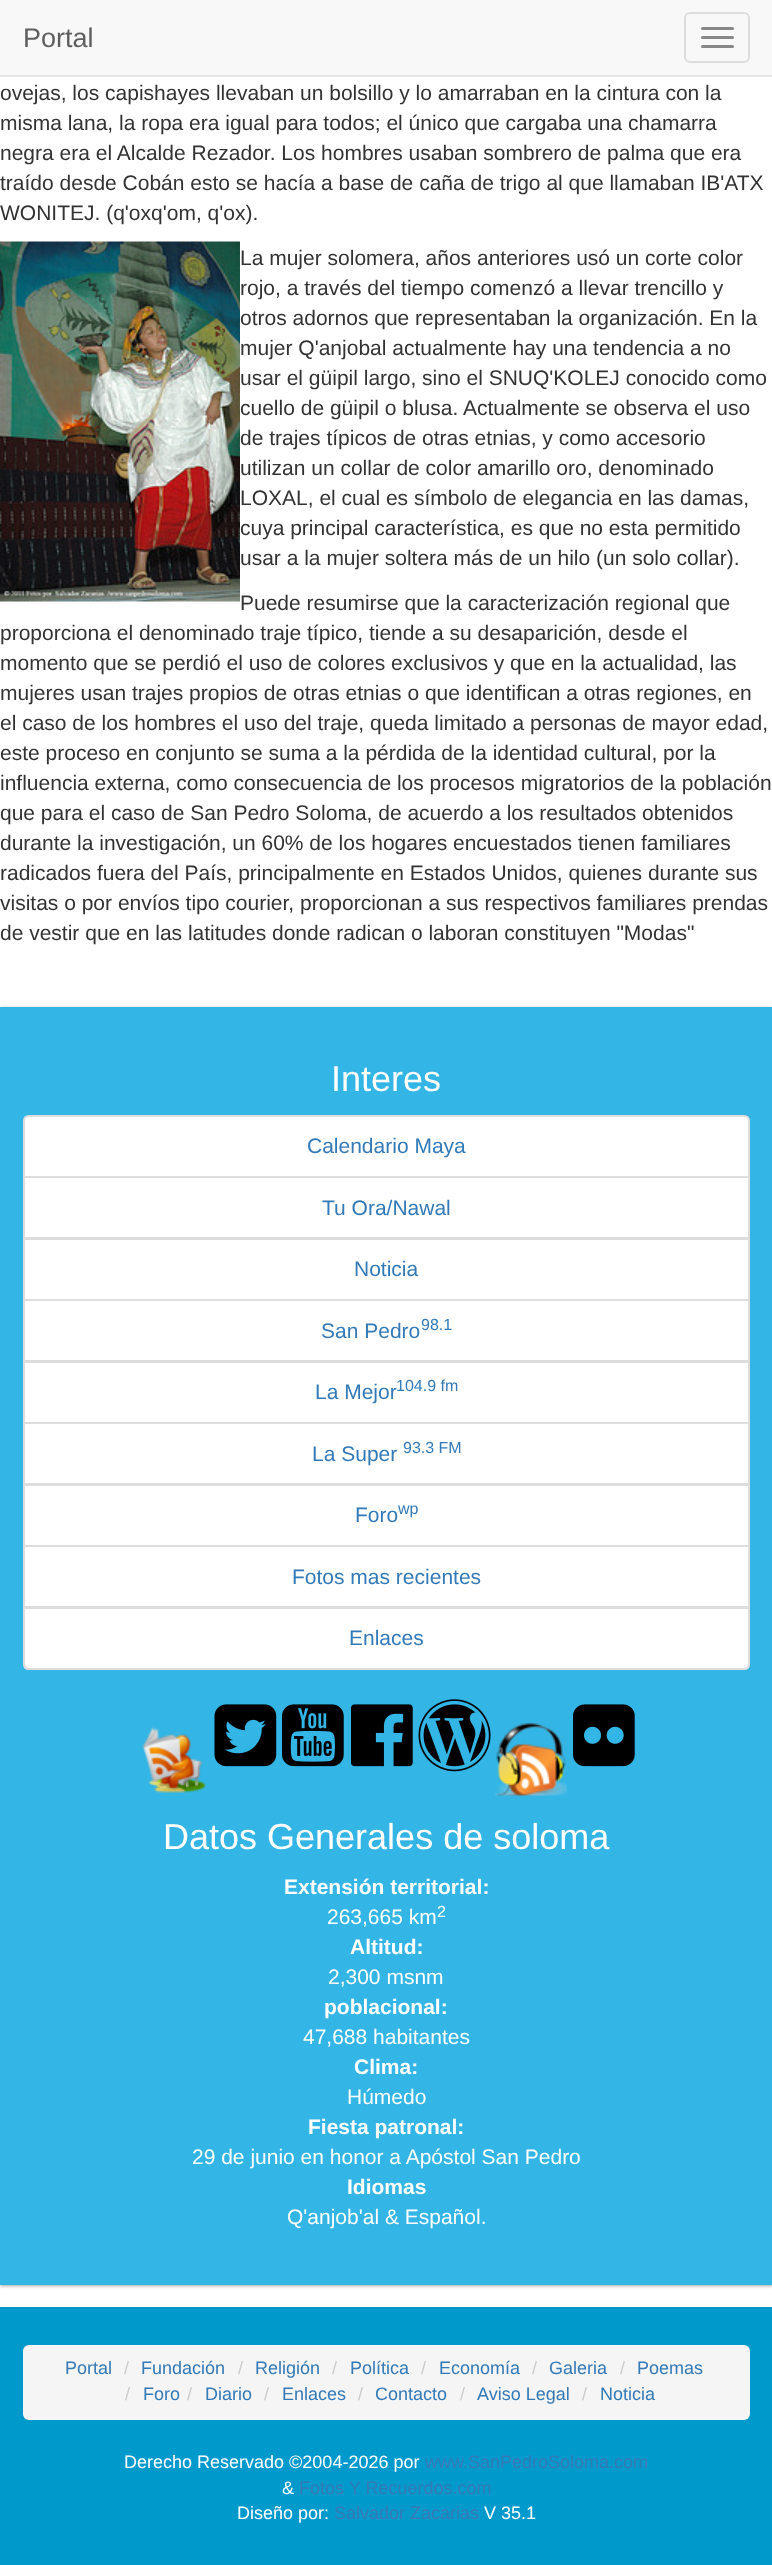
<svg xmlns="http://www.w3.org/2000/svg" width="772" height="2565">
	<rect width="100%" height="100%" fill="#FFFFFF" />
	<rect x="0" y="0" width="772" height="75" fill="#F8F8F8" />
	<rect x="0" y="75" width="772" height="2" fill="#E7E7E7" />
	<text x="23" y="47" font-family="Liberation Sans" font-size="27" fill="#5E5E5E">Portal</text>
	<rect x="685" y="13" width="64" height="49" rx="5" fill="none" stroke="#DDDDDD" stroke-width="2" />
	<rect x="701" y="27" width="33" height="3" rx="1.5" fill="#888888" />
	<rect x="701" y="36" width="33" height="3" rx="1.5" fill="#888888" />
	<rect x="701" y="45" width="33" height="3" rx="1.5" fill="#888888" />
	<g font-family="Liberation Sans" font-size="21" fill="#333333">
		<text x="0" y="100">ovejas, los capishayes llevaban un bolsillo y lo amarraban en la cintura con la</text>
		<text x="0" y="130">misma lana, la ropa era igual para todos; el único que cargaba una chamarra</text>
		<text x="0" y="160">negra era el Alcalde Rezador. Los hombres usaban sombrero de palma que era</text>
		<text x="0" y="190">traído desde Cobán esto se hacía a base de caña de trigo al que llamaban IB'ATX</text>
		<text x="0" y="220">WONITEJ. (q'oxq'om, q'ox).</text>
	</g>
	<image x="0" y="241" width="240" height="361" href="assets/img1.png" />
	<g font-family="Liberation Sans" font-size="21" fill="#333333">
		<text x="240" y="265">La mujer solomera, años anteriores usó un corte color</text>
		<text x="240" y="295">rojo, a través del tiempo comenzó a llevar trencillo y</text>
		<text x="240" y="325">otros adornos que representaban la organización. En la</text>
		<text x="240" y="355">mujer Q'anjobal actualmente hay una tendencia a no</text>
		<text x="240" y="385">usar el güipil largo, sino el SNUQ'KOLEJ conocido como</text>
		<text x="240" y="415">cuello de güipil o blusa. Actualmente se observa el uso</text>
		<text x="240" y="445">de trajes típicos de otras etnias, y como accesorio</text>
		<text x="240" y="475">utilizan un collar de color amarillo oro, denominado</text>
		<text x="240" y="505">LOXAL, el cual es símbolo de elegancia en las damas,</text>
		<text x="240" y="535">cuya principal característica, es que no esta permitido</text>
		<text x="240" y="565">usar a la mujer soltera más de un hilo (un solo collar).</text>
		<text x="240" y="610">Puede resumirse que la caracterización regional que</text>
		<text x="0" y="640">proporciona el denominado traje típico, tiende a su desaparición, desde el</text>
		<text x="0" y="670">momento que se perdió el uso de colores exclusivos y que en la actualidad, las</text>
		<text x="0" y="700">mujeres usan trajes propios de otras etnias o que identifican a otras regiones, en</text>
		<text x="0" y="730">el caso de los hombres el uso del traje, queda limitado a personas de mayor edad,</text>
		<text x="0" y="760">este proceso en conjunto se suma a la pérdida de la identidad cultural, por la</text>
		<text x="0" y="790">influencia externa, como consecuencia de los procesos migratorios de la población</text>
		<text x="0" y="820">que para el caso de San Pedro Soloma, de acuerdo a los resultados obtenidos</text>
		<text x="0" y="850">durante la investigación, un 60% de los hogares encuestados tienen familiares</text>
		<text x="0" y="880">radicados fuera del País, principalmente en Estados Unidos, quienes durante sus</text>
		<text x="0" y="910">visitas o por envíos tipo courier, proporcionan a sus respectivos familiares prendas</text>
		<text x="0" y="940">de vestir que en las latitudes donde radican o laboran constituyen "Modas"</text>
	</g>
	<rect x="0" y="1008" width="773" height="1278" fill="#000000" fill-opacity="0.24" filter="blur(1.5px)" />
	<rect x="0" y="1008" width="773" height="1278" fill="#000000" fill-opacity="0.12" filter="blur(2px)" />
	<rect x="0" y="1007" width="772" height="1278" fill="#33B5E5" />
	<text x="331" y="1091" font-family="Liberation Sans" font-size="36" fill="#FFFFFF">Interes</text>
	<path d="M29 1116H744C747 1116 749 1118 749 1121V1177H24V1121C24 1118 26 1116 29 1116Z" fill="#FFFFFF" stroke="#DDDDDD" stroke-width="2" />
	<text x="307" y="1153" font-family="Liberation Sans" font-size="21" fill="#337AB7">Calendario Maya</text>
	<rect x="24" y="1177" width="725" height="61" fill="#FFFFFF" stroke="#DDDDDD" stroke-width="2" />
	<text x="322" y="1215" font-family="Liberation Sans" font-size="21" fill="#337AB7">Tu Ora/Nawal</text>
	<rect x="24" y="1239" width="725" height="61" fill="#FFFFFF" stroke="#DDDDDD" stroke-width="2" />
	<text x="354" y="1276" font-family="Liberation Sans" font-size="21" fill="#337AB7">Noticia</text>
	<rect x="24" y="1300" width="725" height="61" fill="#FFFFFF" stroke="#DDDDDD" stroke-width="2" />
	<text x="321" y="1338" font-family="Liberation Sans" font-size="21" fill="#337AB7">San Pedro</text>
	<text x="421" y="1330" font-family="Liberation Sans" font-size="16" fill="#337AB7">98.1</text>
	<rect x="24" y="1362" width="725" height="61" fill="#FFFFFF" stroke="#DDDDDD" stroke-width="2" />
	<text x="315" y="1399" font-family="Liberation Sans" font-size="21" fill="#337AB7">La Mejor</text>
	<text x="396" y="1391" font-family="Liberation Sans" font-size="16" fill="#337AB7">104.9 fm</text>
	<rect x="24" y="1423" width="725" height="61" fill="#FFFFFF" stroke="#DDDDDD" stroke-width="2" />
	<text x="312" y="1461" font-family="Liberation Sans" font-size="21" fill="#337AB7">La Super</text>
	<text x="403" y="1453" font-family="Liberation Sans" font-size="16" fill="#337AB7">93.3 FM</text>
	<rect x="24" y="1485" width="725" height="61" fill="#FFFFFF" stroke="#DDDDDD" stroke-width="2" />
	<text x="355" y="1522" font-family="Liberation Sans" font-size="21" fill="#337AB7">Foro</text>
	<text x="398" y="1514" font-family="Liberation Sans" font-size="16" fill="#337AB7">wp</text>
	<rect x="24" y="1546" width="725" height="61" fill="#FFFFFF" stroke="#DDDDDD" stroke-width="2" />
	<text x="292" y="1584" font-family="Liberation Sans" font-size="21" fill="#337AB7">Fotos mas recientes</text>
	<path d="M24 1608H749V1664C749 1667 747 1669 744 1669H29C26 1669 24 1667 24 1664Z" fill="#FFFFFF" stroke="#DDDDDD" stroke-width="2" />
	<text x="349" y="1645" font-family="Liberation Sans" font-size="21" fill="#337AB7">Enlaces</text>
	<image x="142" y="1726" width="64" height="67" href="assets/img2.png" />
	<image x="214" y="1704" width="63" height="63" href="assets/img3.png" />
	<image x="282" y="1704" width="62" height="63" href="assets/img4.png" />
	<image x="351" y="1704" width="62" height="63" href="assets/img5.png" />
	<image x="418" y="1699" width="73" height="73" href="assets/img6.png" />
	<image x="495" y="1723" width="72" height="73" href="assets/img7.png" />
	<image x="573" y="1704" width="62" height="63" href="assets/img8.png" />
	<text x="163" y="1849" font-family="Liberation Sans" font-size="36" fill="#FFFFFF">Datos Generales de soloma</text>
	<text x="284" y="1894" font-family="Liberation Sans" font-size="21" font-weight="700" fill="#FFFFFF">Extensión territorial:</text>
	<text x="327" y="1924" font-family="Liberation Sans" font-size="21" fill="#FFFFFF">263,665 km</text>
	<text x="437" y="1917" font-family="Liberation Sans" font-size="16" fill="#FFFFFF">2</text>
	<text x="350" y="1954" font-family="Liberation Sans" font-size="21" font-weight="700" fill="#FFFFFF">Altitud:</text>
	<text x="328" y="1984" font-family="Liberation Sans" font-size="21" fill="#FFFFFF">2,300 msnm</text>
	<text x="324" y="2014" font-family="Liberation Sans" font-size="21" font-weight="700" fill="#FFFFFF">poblacional:</text>
	<text x="303" y="2044" font-family="Liberation Sans" font-size="21" fill="#FFFFFF">47,688 habitantes</text>
	<text x="354" y="2074" font-family="Liberation Sans" font-size="21" font-weight="700" fill="#FFFFFF">Clima:</text>
	<text x="347" y="2104" font-family="Liberation Sans" font-size="21" fill="#FFFFFF">Húmedo</text>
	<text x="308" y="2134" font-family="Liberation Sans" font-size="21" font-weight="700" fill="#FFFFFF">Fiesta patronal:</text>
	<text x="192" y="2164" font-family="Liberation Sans" font-size="21" fill="#FFFFFF">29 de junio en honor a Apóstol San Pedro</text>
	<text x="347" y="2194" font-family="Liberation Sans" font-size="21" font-weight="700" fill="#FFFFFF">Idiomas</text>
	<text x="287" y="2224" font-family="Liberation Sans" font-size="21" fill="#FFFFFF">Q'anjob'al &amp; Español.</text>
	<rect x="0" y="2307" width="772" height="258" fill="#0099CC" />
	<rect x="23" y="2345" width="727" height="75" rx="6" fill="#F5F5F5" />
	<text x="65" y="2374" font-family="Liberation Sans" font-size="18" fill="#337AB7">Portal</text>
	<text x="124" y="2374" font-family="Liberation Sans" font-size="18" fill="#CCCCCC">/</text>
	<text x="141" y="2374" font-family="Liberation Sans" font-size="18" fill="#337AB7">Fundación</text>
	<text x="238" y="2374" font-family="Liberation Sans" font-size="18" fill="#CCCCCC">/</text>
	<text x="255" y="2374" font-family="Liberation Sans" font-size="18" fill="#337AB7">Religión</text>
	<text x="332" y="2374" font-family="Liberation Sans" font-size="18" fill="#CCCCCC">/</text>
	<text x="350" y="2374" font-family="Liberation Sans" font-size="18" fill="#337AB7">Política</text>
	<text x="421" y="2374" font-family="Liberation Sans" font-size="18" fill="#CCCCCC">/</text>
	<text x="439" y="2374" font-family="Liberation Sans" font-size="18" fill="#337AB7">Economía</text>
	<text x="532" y="2374" font-family="Liberation Sans" font-size="18" fill="#CCCCCC">/</text>
	<text x="549" y="2374" font-family="Liberation Sans" font-size="18" fill="#337AB7">Galeria</text>
	<text x="620" y="2374" font-family="Liberation Sans" font-size="18" fill="#CCCCCC">/</text>
	<text x="637" y="2374" font-family="Liberation Sans" font-size="18" fill="#337AB7">Poemas</text>
	<text x="125" y="2400" font-family="Liberation Sans" font-size="18" fill="#CCCCCC">/</text>
	<text x="143" y="2400" font-family="Liberation Sans" font-size="18" fill="#337AB7">Foro</text>
	<text x="187" y="2400" font-family="Liberation Sans" font-size="18" fill="#CCCCCC">/</text>
	<text x="205" y="2400" font-family="Liberation Sans" font-size="18" fill="#337AB7">Diario</text>
	<text x="264" y="2400" font-family="Liberation Sans" font-size="18" fill="#CCCCCC">/</text>
	<text x="282" y="2400" font-family="Liberation Sans" font-size="18" fill="#337AB7">Enlaces</text>
	<text x="358" y="2400" font-family="Liberation Sans" font-size="18" fill="#CCCCCC">/</text>
	<text x="375" y="2400" font-family="Liberation Sans" font-size="18" fill="#337AB7">Contacto</text>
	<text x="460" y="2400" font-family="Liberation Sans" font-size="18" fill="#CCCCCC">/</text>
	<text x="477" y="2400" font-family="Liberation Sans" font-size="18" fill="#337AB7">Aviso Legal</text>
	<text x="582" y="2400" font-family="Liberation Sans" font-size="18" fill="#CCCCCC">/</text>
	<text x="600" y="2400" font-family="Liberation Sans" font-size="18" fill="#337AB7">Noticia</text>
	<text x="124" y="2468" font-family="Liberation Sans" font-size="18" fill="#FFFFFF">Derecho Reservado ©2004-2026 por</text>
	<text x="425" y="2468" font-family="Liberation Sans" font-size="18" fill="#337AB7">www.SanPedroSoloma.com</text>
	<text x="282" y="2494" font-family="Liberation Sans" font-size="18" fill="#FFFFFF">&amp;</text>
	<text x="299" y="2494" font-family="Liberation Sans" font-size="18" fill="#337AB7">Fotos Y Recuerdos.com</text>
	<text x="237" y="2519" font-family="Liberation Sans" font-size="18" fill="#FFFFFF">Diseño por:</text>
	<text x="334" y="2519" font-family="Liberation Sans" font-size="18" fill="#337AB7">Salvador Zacarias</text>
	<text x="484" y="2519" font-family="Liberation Sans" font-size="18" fill="#FFFFFF">V 35.1</text>
</svg>
